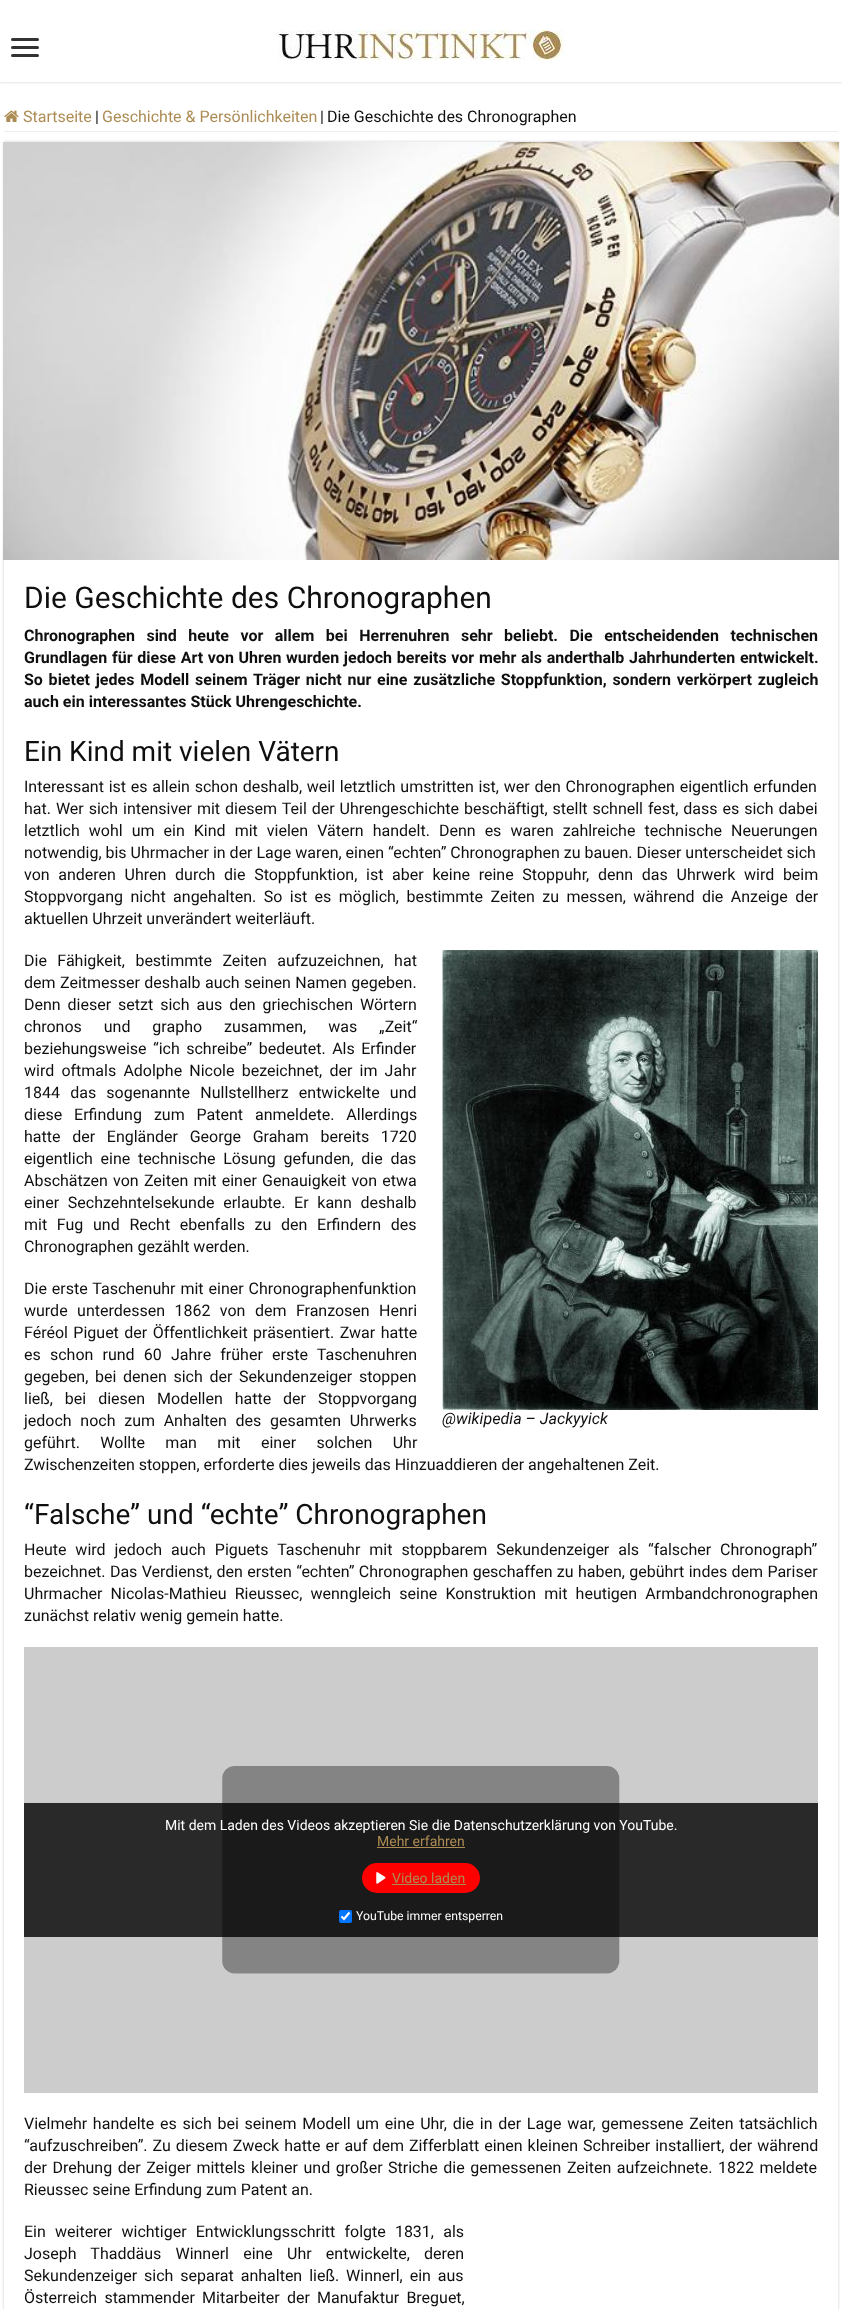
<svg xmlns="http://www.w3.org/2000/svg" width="842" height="2309">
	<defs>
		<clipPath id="clip1"><rect x="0" y="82" width="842" height="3" /></clipPath>
		<clipPath id="clip2"><path d="M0 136H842V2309H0ZM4 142H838V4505H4Z" clip-rule="evenodd" /></clipPath>
	</defs>
	<rect width="100%" height="100%" fill="#FFFFFF" />
	<g clip-path="url(#clip1)">
		<rect x="0" y="0" width="842" height="82" fill="#CACACA" filter="blur(1.5px)" />
	</g>
	<rect x="11" y="38" width="28" height="3" rx="1.5" fill="#333333" />
	<rect x="11" y="46" width="28" height="3" rx="1.5" fill="#333333" />
	<rect x="11" y="54" width="28" height="3" rx="1.5" fill="#333333" />
	<image x="277" y="30" width="287" height="30" href="assets/img1.png" />
	<rect x="4" y="131" width="834" height="1" fill="#EEEEEE" />
	<image x="4" y="110" width="15" height="12" href="assets/img2.png" />
	<text x="23" y="122" font-family="Roboto" font-size="16" fill="#AC8C54">Startseite</text>
	<text x="95" y="122" font-family="Roboto" font-size="16" fill="#0F0F0F">|</text>
	<text x="102" y="122" font-family="Roboto" font-size="16" fill="#AC8C54">Geschichte &amp; Persönlichkeiten</text>
	<g font-family="Roboto" font-size="16" fill="#0F0F0F">
		<text x="320" y="122">|</text>
		<text x="327" y="122">Die Geschichte des Chronographen</text>
	</g>
	<g clip-path="url(#clip2)">
		<rect x="4" y="142" width="834" height="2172" fill="#CACACA" filter="blur(1.5px)" />
	</g>
	<image x="3" y="142" width="836" height="418" href="assets/img3.png" />
	<text x="24" y="608" font-family="Roboto" font-size="30" fill="#0F0F0F">Die Geschichte des Chronographen</text>
	<g font-family="Roboto" font-size="16" font-weight="700" fill="#0F0F0F">
		<text x="24" y="641" word-spacing="7.5">Chronographen sind heute vor allem bei Herrenuhren sehr beliebt. Die entscheidenden technischen</text>
		<text x="24" y="663" word-spacing="0.75">Grundlagen für diese Art von Uhren wurden jedoch bereits vor mehr als anderthalb Jahrhunderten entwickelt.</text>
		<text x="24" y="685" word-spacing="1.75">So bietet jedes Modell seinem Träger nicht nur eine zusätzliche Stoppfunktion, sondern verkörpert zugleich</text>
		<text x="24" y="707">auch ein interessantes Stück Uhrengeschichte.</text>
	</g>
	<text x="24" y="761" font-family="Roboto" font-size="28" fill="#0F0F0F">Ein Kind mit vielen Vätern</text>
	<g font-family="Roboto" font-size="16" fill="#0F0F0F">
		<text x="24" y="792" word-spacing="0.8">Interessant ist es allein schon deshalb, weil letztlich umstritten ist, wer den Chronographen eigentlich erfunden</text>
		<text x="24" y="814" word-spacing="1">hat. Wer sich intensiver mit diesem Teil der Uhrengeschichte beschäftigt, stellt schnell fest, dass es sich dabei</text>
		<text x="24" y="836" word-spacing="5.1">letztlich wohl um ein Kind mit vielen Vätern handelt. Denn es waren zahlreiche technische Neuerungen</text>
		<text x="24" y="858">notwendig, bis Uhrmacher in der Lage waren, einen “echten” Chronographen zu bauen. Dieser unterscheidet sich</text>
		<text x="24" y="880" word-spacing="4.75">von anderen Uhren durch die Stoppfunktion, ist aber keine reine Stoppuhr, denn das Uhrwerk wird beim</text>
		<text x="24" y="902" word-spacing="3.5">Stoppvorgang nicht angehalten. So ist es möglich, bestimmte Zeiten zu messen, während die Anzeige der</text>
		<text x="24" y="924">aktuellen Uhrzeit unverändert weiterläuft.</text>
		<text x="24" y="966" word-spacing="6.5">Die Fähigkeit, bestimmte Zeiten aufzuzeichnen, hat</text>
		<text x="24" y="988" word-spacing="0.5">dem Zeitmesser deshalb auch seinen Namen gegeben.</text>
		<text x="24" y="1010" word-spacing="3">Denn dieser setzt sich aus den griechischen Wörtern</text>
		<text x="24" y="1032" word-spacing="18">chronos und grapho zusammen, was „Zeit“</text>
		<text x="24" y="1054" word-spacing="2.5">beziehungsweise “ich schreibe” bedeutet. Als Erfinder</text>
		<text x="24" y="1076" word-spacing="3.25">wird oftmals Adolphe Nicole bezeichnet, der im Jahr</text>
		<text x="24" y="1098" word-spacing="6.25">1844 das sogenannte Nullstellherz entwickelte und</text>
		<text x="24" y="1120" word-spacing="8">diese Erfindung zum Patent anmeldete. Allerdings</text>
		<text x="24" y="1142" word-spacing="7.75">hatte der Engländer George Graham bereits 1720</text>
		<text x="24" y="1164" word-spacing="3.75">eigentlich eine technische Lösung gefunden, die das</text>
		<text x="24" y="1186" word-spacing="1.25">Abschätzen von Zeiten mit einer Genauigkeit von etwa</text>
		<text x="24" y="1208" word-spacing="4.75">einer Sechzehntelsekunde erlaubte. Er kann deshalb</text>
		<text x="24" y="1230" word-spacing="5.75">mit Fug und Recht ebenfalls zu den Erfindern des</text>
		<text x="24" y="1252">Chronographen gezählt werden.</text>
		<text x="24" y="1294" word-spacing="1">Die erste Taschenuhr mit einer Chronographenfunktion</text>
		<text x="24" y="1316" word-spacing="5.5">wurde unterdessen 1862 von dem Franzosen Henri</text>
		<text x="24" y="1338" word-spacing="1.5">Féréol Piguet der Öffentlichkeit präsentiert. Zwar hatte</text>
		<text x="24" y="1360" word-spacing="5.25">es schon rund 60 Jahre früher erste Taschenuhren</text>
		<text x="24" y="1382" word-spacing="2.75">gegeben, bei denen sich der Sekundenzeiger stoppen</text>
		<text x="24" y="1404" word-spacing="8">ließ, bei diesen Modellen hatte der Stoppvorgang</text>
		<text x="24" y="1426" word-spacing="4.75">jedoch noch zum Anhalten des gesamten Uhrwerks</text>
		<text x="24" y="1448" word-spacing="16.5">geführt. Wollte man mit einer solchen Uhr</text>
		<text x="24" y="1470">Zwischenzeiten stoppen, erforderte dies jeweils das Hinzuaddieren der angehaltenen Zeit.</text>
	</g>
	<image x="442" y="950" width="376" height="460" href="assets/img4.png" />
	<text x="442" y="1424" font-family="Roboto" font-size="16" font-style="italic" fill="#0F0F0F">@wikipedia – Jackyyick</text>
	<text x="24" y="1524" font-family="Roboto" font-size="28" fill="#0F0F0F">“Falsche” und “echte” Chronographen</text>
	<g font-family="Roboto" font-size="16" fill="#0F0F0F">
		<text x="24" y="1555" word-spacing="5">Heute wird jedoch auch Piguets Taschenuhr mit stoppbarem Sekundenzeiger als “falscher Chronograph”</text>
		<text x="24" y="1577" word-spacing="0.4">bezeichnet. Das Verdienst, den ersten “echten” Chronographen geschaffen zu haben, gebührt indes dem Pariser</text>
		<text x="24" y="1599" word-spacing="4.25">Uhrmacher Nicolas-Mathieu Rieussec, wenngleich seine Konstruktion mit heutigen Armbandchronographen</text>
		<text x="24" y="1621">zunächst relativ wenig gemein hatte.</text>
	</g>
	<image x="24" y="1647" width="794" height="446" href="assets/img5.png" />
	<rect x="24" y="1803" width="794" height="134" fill="#000000" fill-opacity="0.8" />
	<text x="165" y="1830" font-family="Roboto" font-size="14" fill="#FFFFFF">Mit dem Laden des Videos akzeptieren Sie die Datenschutzerklärung von YouTube.</text>
	<text x="377" y="1846" font-family="Roboto" font-size="14" fill="#AC8C54">Mehr erfahren</text>
	<rect x="377" y="1847" width="88" height="1" fill="#AC8C54" />
	<rect x="362" y="1863" width="118" height="30" rx="15" fill="#FF0000" />
	<image x="376" y="1872" width="10" height="12" href="assets/img6.png" />
	<text x="392" y="1883" font-family="Roboto" font-size="14" fill="#AC8C54">Video laden</text>
	<rect x="392" y="1884" width="74" height="1" fill="#AC8C54" />
	<rect x="339" y="1910" width="13" height="13" rx="2" fill="#0075FF" />
	<path d="M341.5 1916.5L344 1919L349.5 1912.5" fill="none" stroke="#FFFFFF" stroke-width="2.1" />
	<text x="356" y="1920" font-family="Roboto" font-size="12.25" fill="#FFFFFF">YouTube immer entsperren</text>
	<g font-family="Roboto" font-size="16" fill="#0F0F0F">
		<text x="24" y="2129" word-spacing="1.75">Vielmehr handelte es sich bei seinem Modell um eine Uhr, die in der Lage war, gemessene Zeiten tatsächlich</text>
		<text x="24" y="2151" word-spacing="1">“aufzuschreiben”. Zu diesem Zweck hatte er auf dem Zifferblatt einen kleinen Schreiber installiert, der während</text>
		<text x="24" y="2173" word-spacing="1.6">der Drehung der Zeiger mittels kleiner und großer Striche die gemessenen Zeiten aufzeichnete. 1822 meldete</text>
		<text x="24" y="2195">Rieussec seine Erfindung zum Patent an.</text>
		<text x="24" y="2237" word-spacing="5.25">Ein weiterer wichtiger Entwicklungsschritt folgte 1831, als</text>
		<text x="24" y="2259" word-spacing="10.25">Joseph Thaddäus Winnerl eine Uhr entwickelte, deren</text>
		<text x="24" y="2281" word-spacing="3">Sekundenzeiger sich separat anhalten ließ. Winnerl, ein aus</text>
		<text x="24" y="2303" word-spacing="3.25">Österreich stammender Mitarbeiter der Manufaktur Breguet,</text>
	</g>
</svg>
